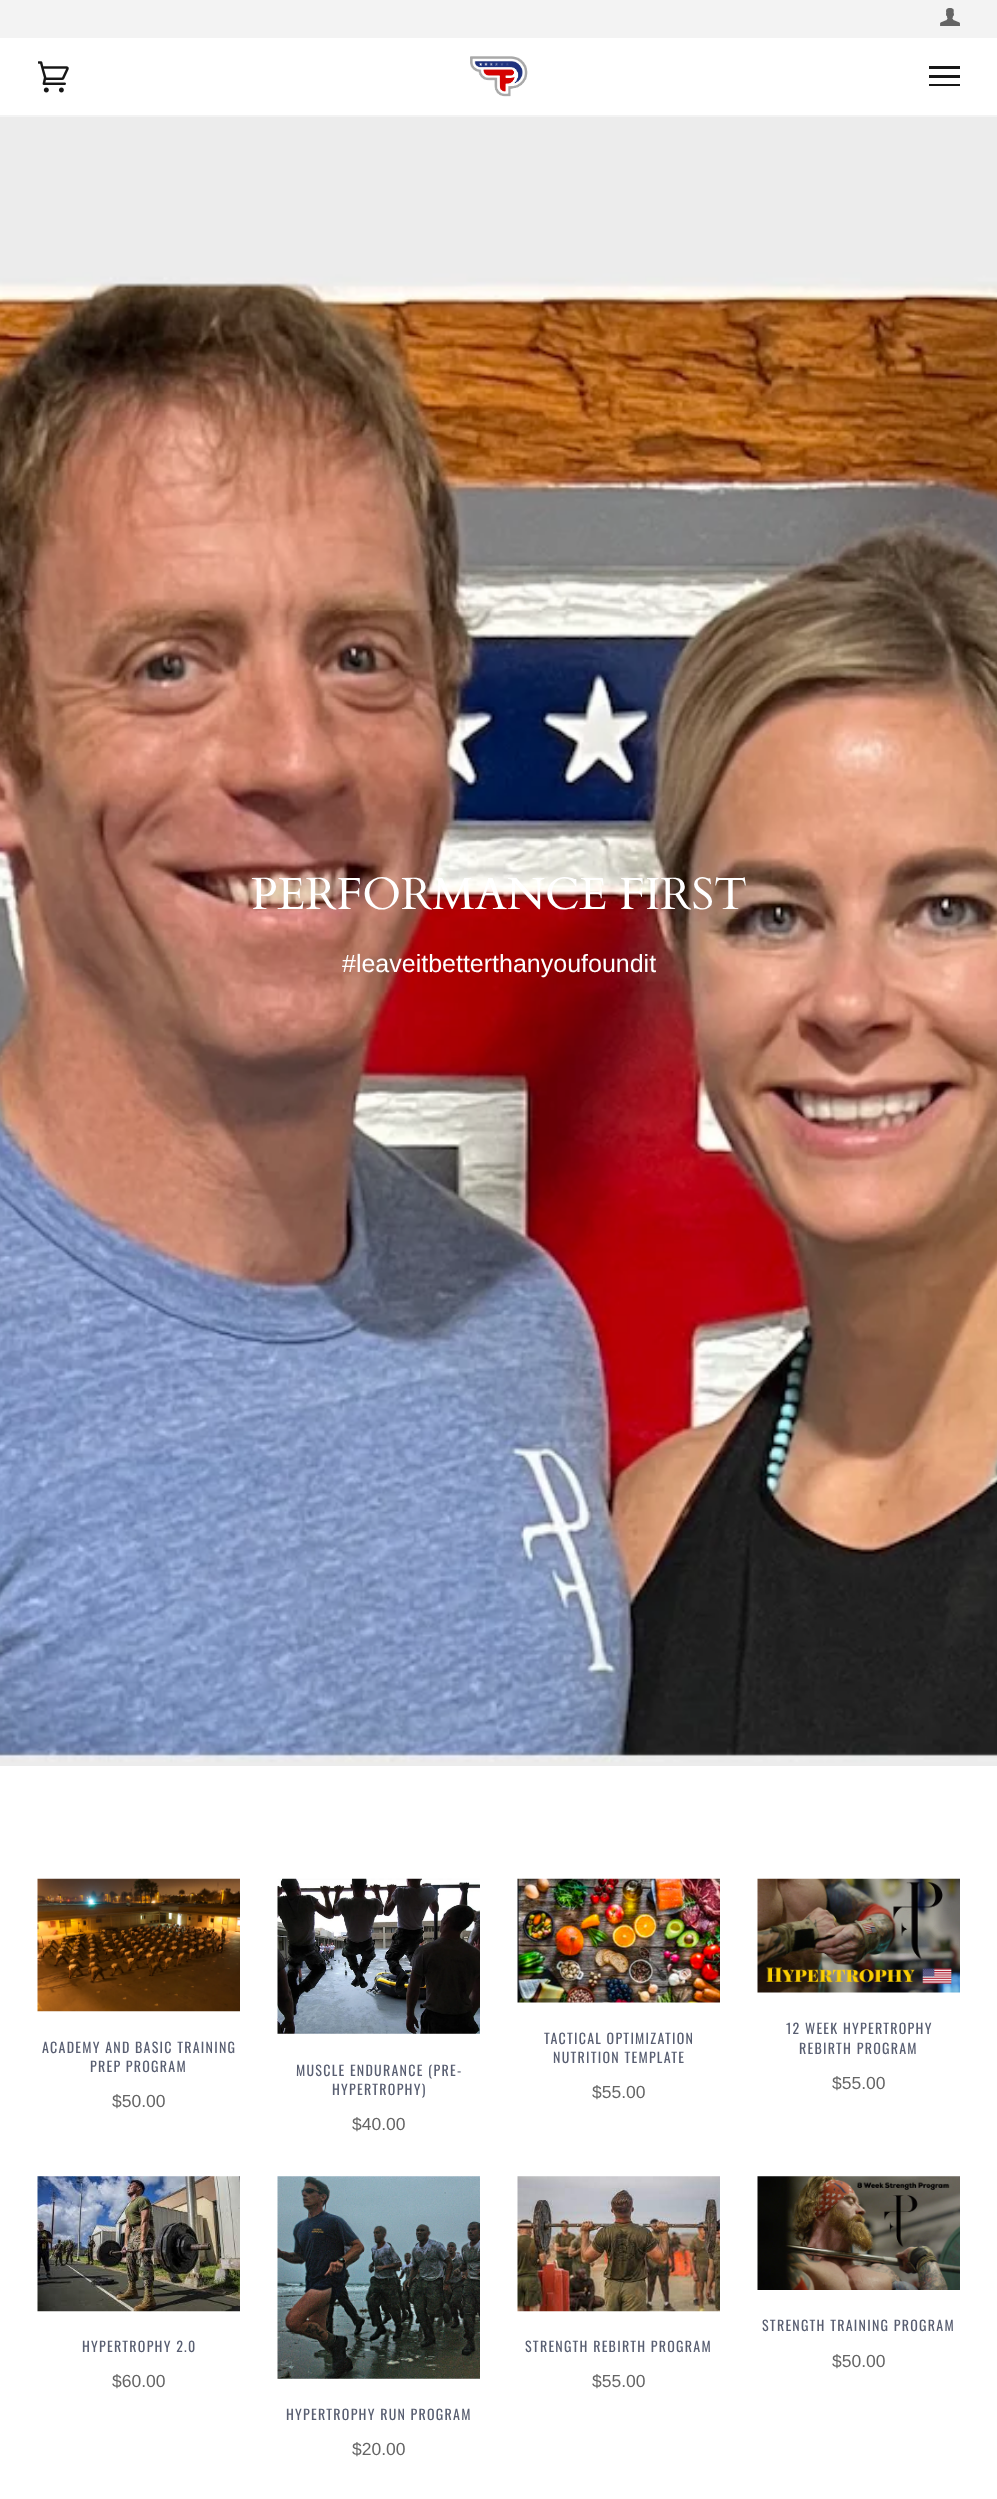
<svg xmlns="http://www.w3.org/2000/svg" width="997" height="2499">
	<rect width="100%" height="100%" fill="#FFFFFF" />
	<rect x="0" y="0" width="997" height="38" fill="#F3F3F3" />
	<image x="940" y="8" width="20" height="18" href="assets/img1.png" />
	<rect x="0" y="115" width="997" height="1" fill="#F3F3F3" />
	<image x="38" y="61" width="31" height="32" href="assets/img2.png" />
	<image x="470" y="56" width="58" height="41" href="assets/img3.png" />
	<rect x="929" y="66" width="31" height="3" fill="#171717" />
	<rect x="929" y="75" width="31" height="3" fill="#171717" />
	<rect x="929" y="84" width="31" height="2" fill="#171717" />
	<image x="0" y="116" width="997" height="1650" href="assets/img4.png" />
	<text x="251" y="909" font-family="Cardo" font-size="45" fill="#FFFFFF">PERFORMANCE FIRST</text>
	<text x="342" y="972" font-family="Liberation Sans" font-size="25" fill="#FFFFFF">#leaveitbetterthanyoufoundit</text>
	<image x="37" y="1878" width="203" height="134" href="assets/img5.png" />
	<g font-family="Oswald" font-size="14" letter-spacing="1.25" fill="#585E71">
		<text x="42" y="2053">ACADEMY AND BASIC TRAINING</text>
		<text x="90" y="2072">PREP PROGRAM</text>
	</g>
	<text x="112" y="2107" font-family="Liberation Sans" font-size="17.5" fill="#656565">$50.00</text>
	<image x="277" y="1878" width="203" height="156" href="assets/img6.png" />
	<g font-family="Oswald" font-size="14" letter-spacing="1.25" fill="#585E71">
		<text x="296" y="2076">MUSCLE ENDURANCE (PRE-</text>
		<text x="332" y="2095">HYPERTROPHY)</text>
	</g>
	<text x="352" y="2130" font-family="Liberation Sans" font-size="17.5" fill="#656565">$40.00</text>
	<image x="517" y="1878" width="203" height="125" href="assets/img7.png" />
	<g font-family="Oswald" font-size="14" letter-spacing="1.25" fill="#585E71">
		<text x="544" y="2044">TACTICAL OPTIMIZATION</text>
		<text x="553" y="2063">NUTRITION TEMPLATE</text>
	</g>
	<text x="592" y="2098" font-family="Liberation Sans" font-size="17.5" fill="#656565">$55.00</text>
	<image x="757" y="1878" width="203" height="115" href="assets/img8.png" />
	<g font-family="Oswald" font-size="14" letter-spacing="1.25" fill="#585E71">
		<text x="786" y="2034">12 WEEK HYPERTROPHY</text>
		<text x="799" y="2054">REBIRTH PROGRAM</text>
	</g>
	<text x="832" y="2089" font-family="Liberation Sans" font-size="17.5" fill="#656565">$55.00</text>
	<image x="37" y="2176" width="203" height="136" href="assets/img9.png" />
	<text x="82" y="2352" font-family="Oswald" font-size="14" letter-spacing="1.25" fill="#585E71">HYPERTROPHY 2.0</text>
	<text x="112" y="2387" font-family="Liberation Sans" font-size="17.5" fill="#656565">$60.00</text>
	<image x="517" y="2176" width="203" height="136" href="assets/img10.png" />
	<text x="525" y="2352" font-family="Oswald" font-size="14" letter-spacing="1.25" fill="#585E71">STRENGTH REBIRTH PROGRAM</text>
	<text x="592" y="2387" font-family="Liberation Sans" font-size="17.5" fill="#656565">$55.00</text>
	<image x="757" y="2176" width="203" height="114" href="assets/img11.png" />
	<text x="762" y="2331" font-family="Oswald" font-size="14" letter-spacing="1.25" fill="#585E71">STRENGTH TRAINING PROGRAM</text>
	<text x="832" y="2367" font-family="Liberation Sans" font-size="17.5" fill="#656565">$50.00</text>
	<image x="277" y="2176" width="203" height="203" href="assets/img12.png" />
	<text x="286" y="2420" font-family="Oswald" font-size="14" letter-spacing="1.25" fill="#585E71">HYPERTROPHY RUN PROGRAM</text>
	<text x="352" y="2455" font-family="Liberation Sans" font-size="17.5" fill="#656565">$20.00</text>
</svg>
